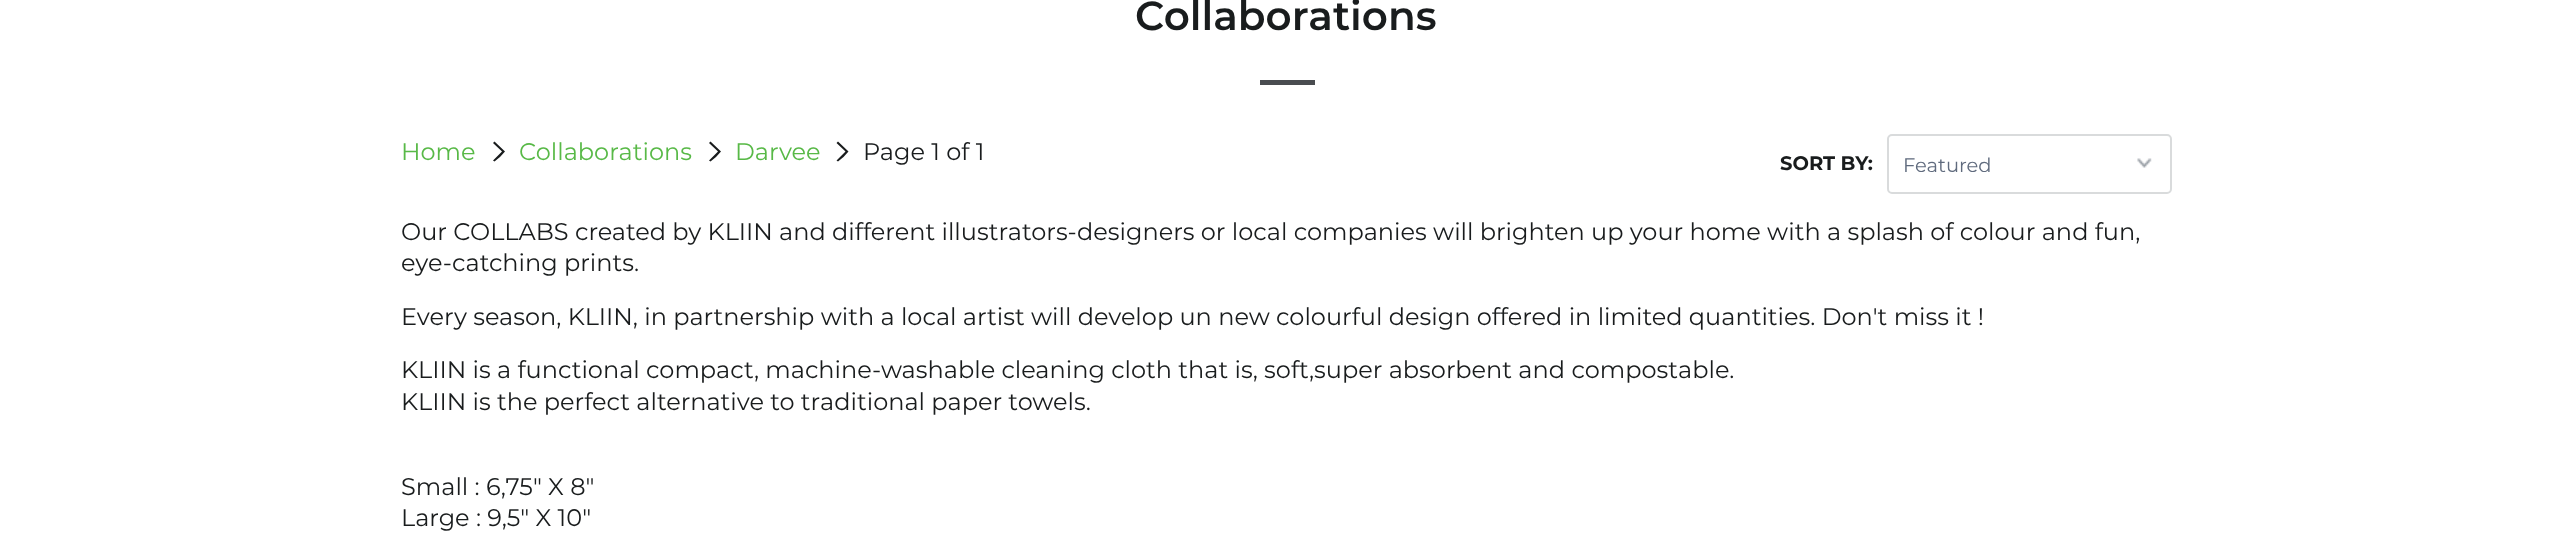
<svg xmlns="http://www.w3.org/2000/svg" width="2572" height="560">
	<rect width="100%" height="100%" fill="#FFFFFF" />
	<text x="1135" y="30" font-family="Montserrat" font-size="40.5" font-weight="600" fill="#191C1D">Collaborations</text>
	<rect x="1260" y="80" width="55" height="5" fill="#494C50" />
	<text x="401" y="160" font-family="Montserrat" font-size="24" fill="#58B947">Home</text>
	<path d="M500 157L494.5 161.5L493 160.5L502 151.5L493 143L494.5 141.5L505 151.5Z" fill="#191C1D" />
	<text x="519" y="160" font-family="Montserrat" font-size="24" fill="#58B947">Collaborations</text>
	<path d="M716 157L710.5 161.5L709 160.5L718 151.5L709 143L710.5 141.5L721 151.5Z" fill="#191C1D" />
	<text x="735" y="160" font-family="Montserrat" font-size="24" fill="#58B947">Darvee</text>
	<path d="M843.5 157L838 161.5L836.5 160.5L845.5 151.5L836.5 143L838 141.5L848.5 151.5Z" fill="#191C1D" />
	<text x="863" y="160" font-family="Montserrat" font-size="24" fill="#191C1D">Page 1 of 1</text>
	<text x="1780" y="170" font-family="Montserrat" font-size="19.5" font-weight="700" fill="#191C1D">SORT BY:</text>
	<image x="2137" y="158" width="15" height="10" href="assets/img1.png" />
	<rect x="1888" y="135" width="283" height="58" rx="4" fill="none" stroke="#D9DBDC" stroke-width="2" />
	<text x="1903" y="172" font-family="Montserrat" font-size="19.5" fill="#5F6A7D">Featured</text>
	<g font-family="Montserrat" font-size="24" fill="#191C1D">
		<text x="401" y="240">Our COLLABS created by KLIIN and different illustrators-designers or local companies will brighten up your home with a splash of colour and fun,</text>
		<text x="401" y="271">eye-catching prints.</text>
		<text x="401" y="325">Every season, KLIIN, in partnership with a local artist will develop un new colourful design offered in limited quantities. Don't miss it !</text>
		<text x="401" y="378">KLIIN is a functional compact, machine-washable cleaning cloth that is, soft,super absorbent and compostable.</text>
		<text x="401" y="410">KLIIN is the perfect alternative to traditional paper towels.</text>
		<text x="401" y="495">Small : 6,75" X 8"</text>
		<text x="401" y="526">Large : 9,5" X 10"</text>
	</g>
</svg>
